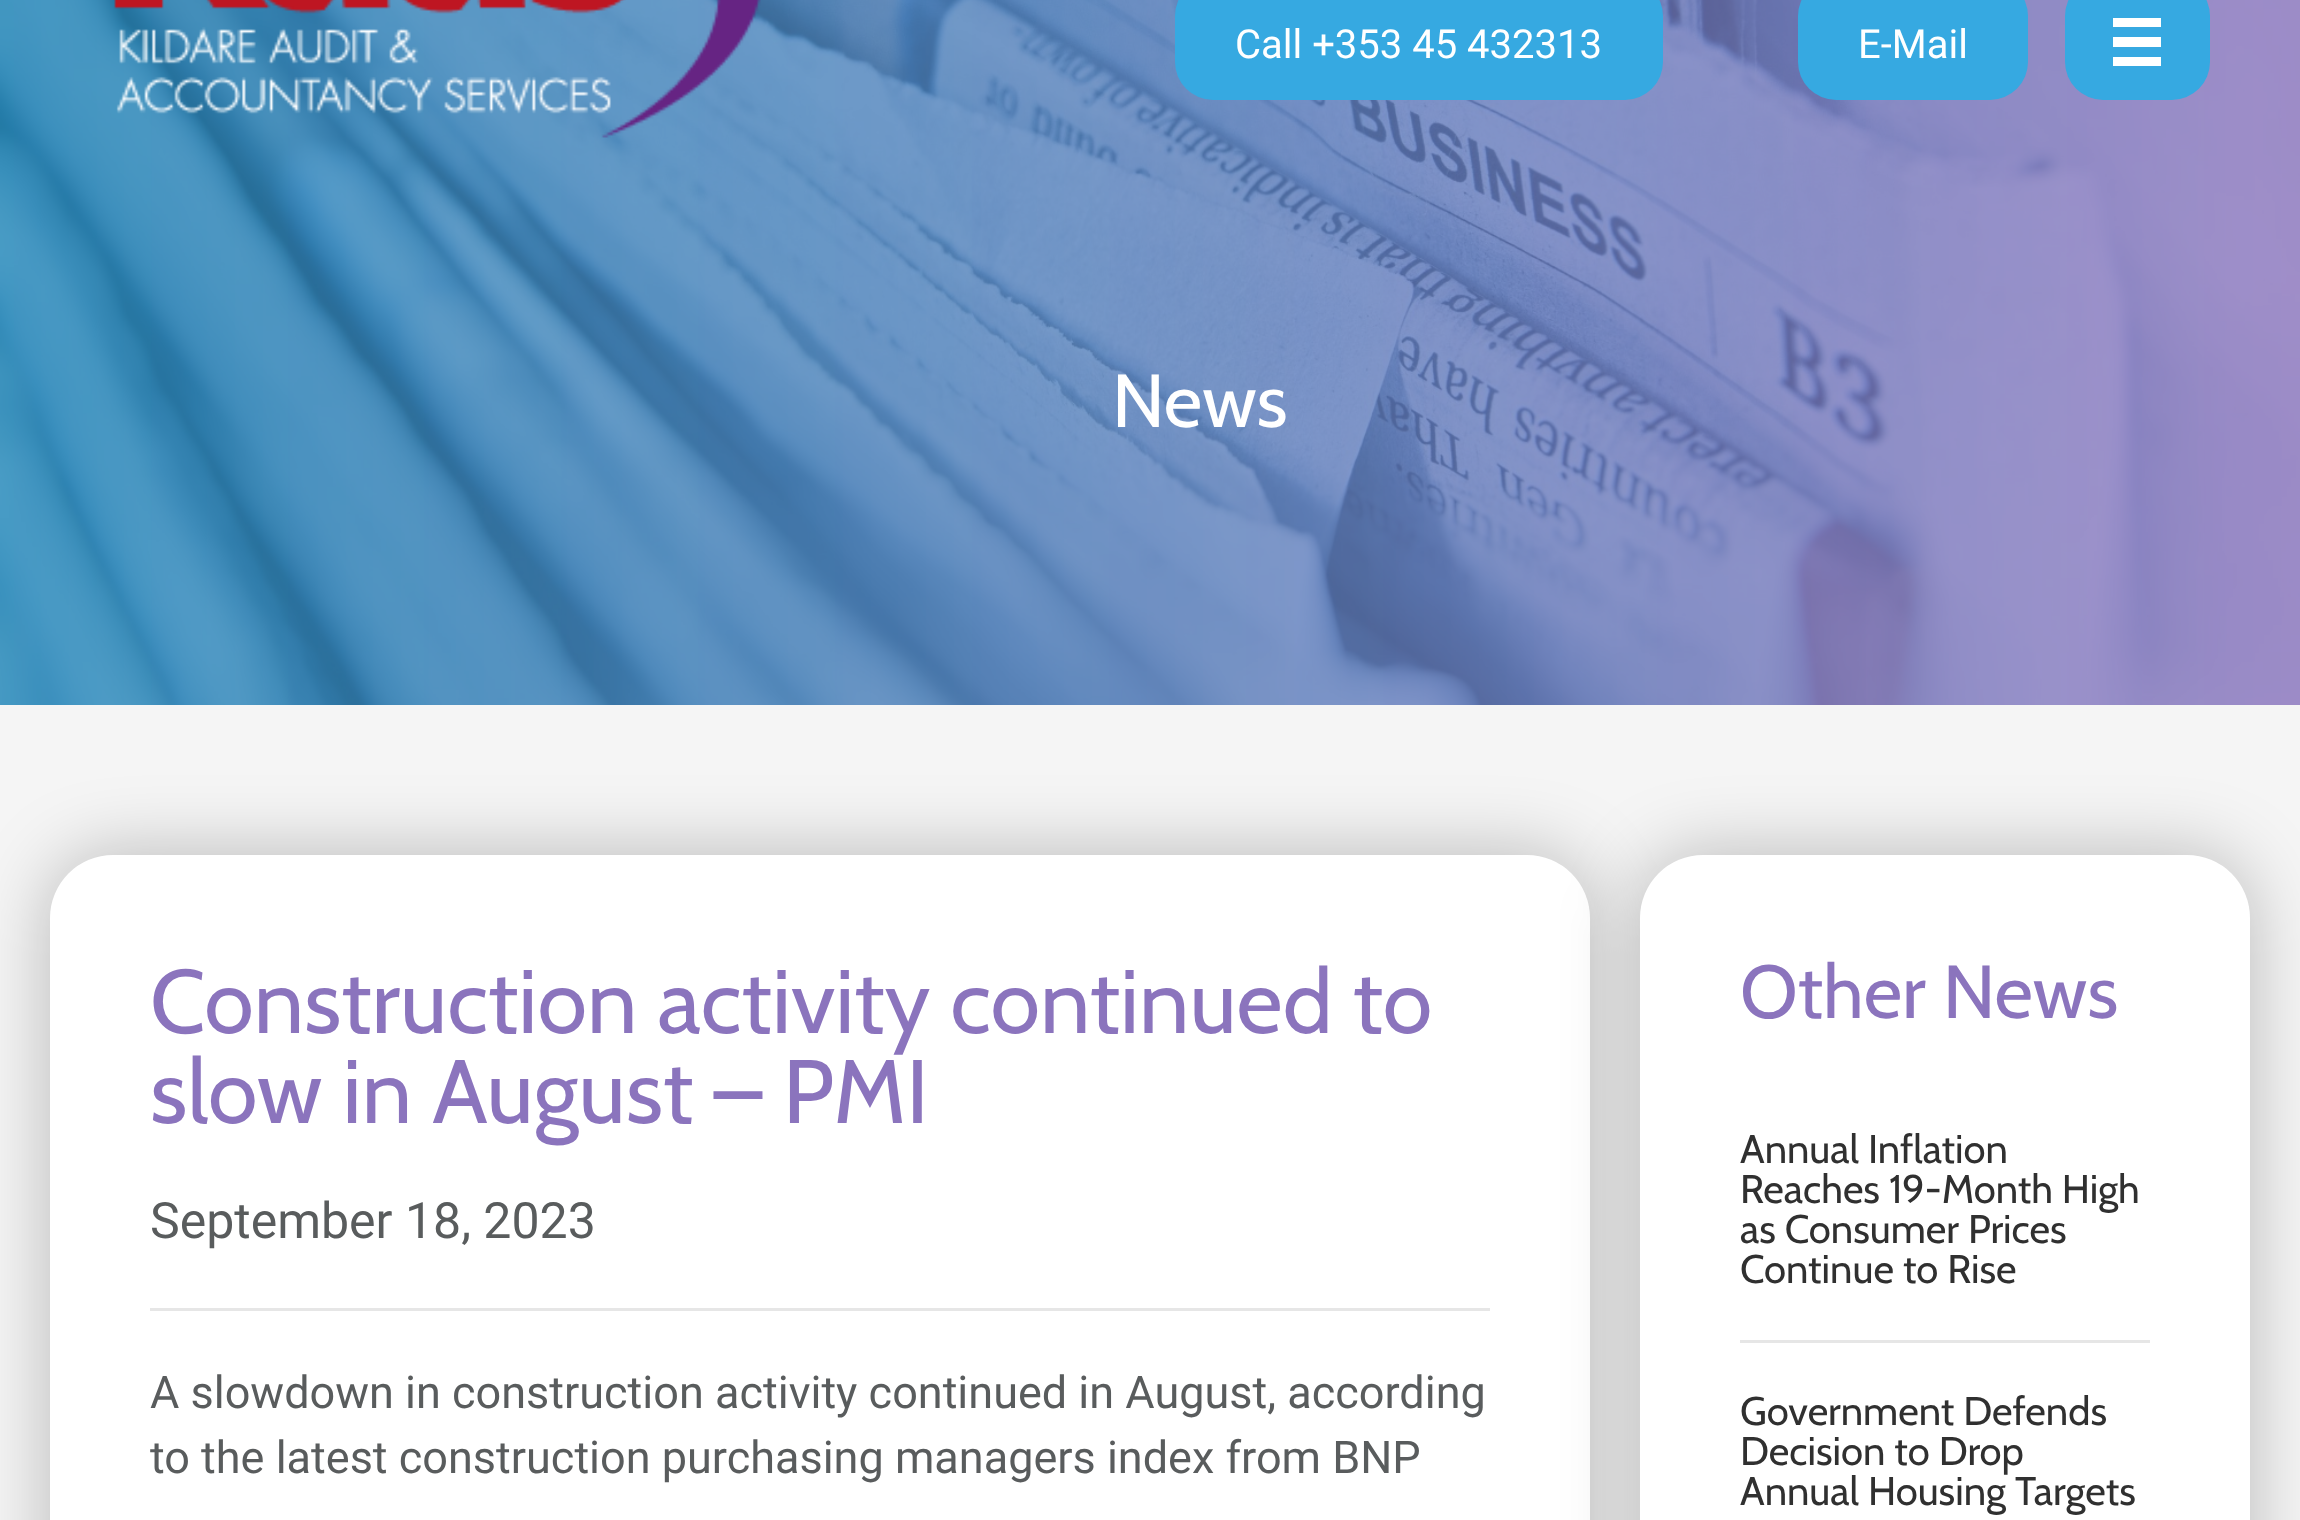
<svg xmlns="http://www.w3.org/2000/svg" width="2300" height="1520">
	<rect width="100%" height="100%" fill="#FFFFFF" />
	<image x="0" y="0" width="2300" height="705" href="assets/img2.png" />
	<image x="114" y="0" width="647" height="138" href="assets/img1.png" />
	<rect x="1175" y="-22" width="488" height="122" rx="38" fill="#36A9E1" />
	<text x="1235" y="58" font-family="Roboto" font-size="40" fill="#FFFFFF">Call +353 45 432313</text>
	<rect x="1798" y="-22" width="230" height="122" rx="38" fill="#36A9E1" />
	<text x="1858" y="58" font-family="Roboto" font-size="40" fill="#FFFFFF">E-Mail</text>
	<rect x="2065" y="-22" width="145" height="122" rx="38" fill="#36A9E1" />
	<rect x="2113" y="18" width="48" height="9" fill="#FFFFFF" />
	<rect x="2113" y="37" width="48" height="10" fill="#FFFFFF" />
	<rect x="2113" y="57" width="48" height="9" fill="#FFFFFF" />
	<text x="1112" y="427" font-family="Cabin" font-size="75" fill="#FFFFFF">News</text>
	<rect x="0" y="705" width="2300" height="815" fill="#F5F5F5" />
	<rect x="50" y="855" width="1540" height="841" rx="63" fill="#000000" fill-opacity="0.25" filter="blur(37.5px)" />
	<rect x="50" y="855" width="1540" height="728" rx="63" fill="#FFFFFF" />
	<g font-family="Cabin" font-size="90" fill="#8B74BD">
		<text x="150" y="1033">Construction activity continued to</text>
		<text x="150" y="1123">slow in August – PMI</text>
	</g>
	<text x="150" y="1238" font-family="Roboto" font-size="50" fill="#595C5D">September 18, 2023</text>
	<rect x="150" y="1308" width="1340" height="3" fill="#E6E6E6" />
	<g font-family="Roboto" font-size="45" fill="#595C5D">
		<text x="150" y="1408">A slowdown in construction activity continued in August, according</text>
		<text x="150" y="1473">to the latest construction purchasing managers index from BNP</text>
	</g>
	<rect x="1640" y="855" width="610" height="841" rx="63" fill="#000000" fill-opacity="0.25" filter="blur(37.5px)" />
	<rect x="1640" y="855" width="610" height="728" rx="63" fill="#FFFFFF" />
	<text x="1740" y="1018" font-family="Cabin" font-size="75" fill="#8B74BD">Other News</text>
	<rect x="1740" y="1340" width="410" height="3" fill="#E6E6E6" />
	<g font-family="Cabin" font-size="40" fill="#303030">
		<text x="1740" y="1163">Annual Inflation</text>
		<text x="1740" y="1203">Reaches 19-Month High</text>
		<text x="1740" y="1243">as Consumer Prices</text>
		<text x="1740" y="1283">Continue to Rise</text>
		<text x="1740" y="1425">Government Defends</text>
		<text x="1740" y="1465">Decision to Drop</text>
		<text x="1740" y="1505">Annual Housing Targets</text>
	</g>
</svg>
